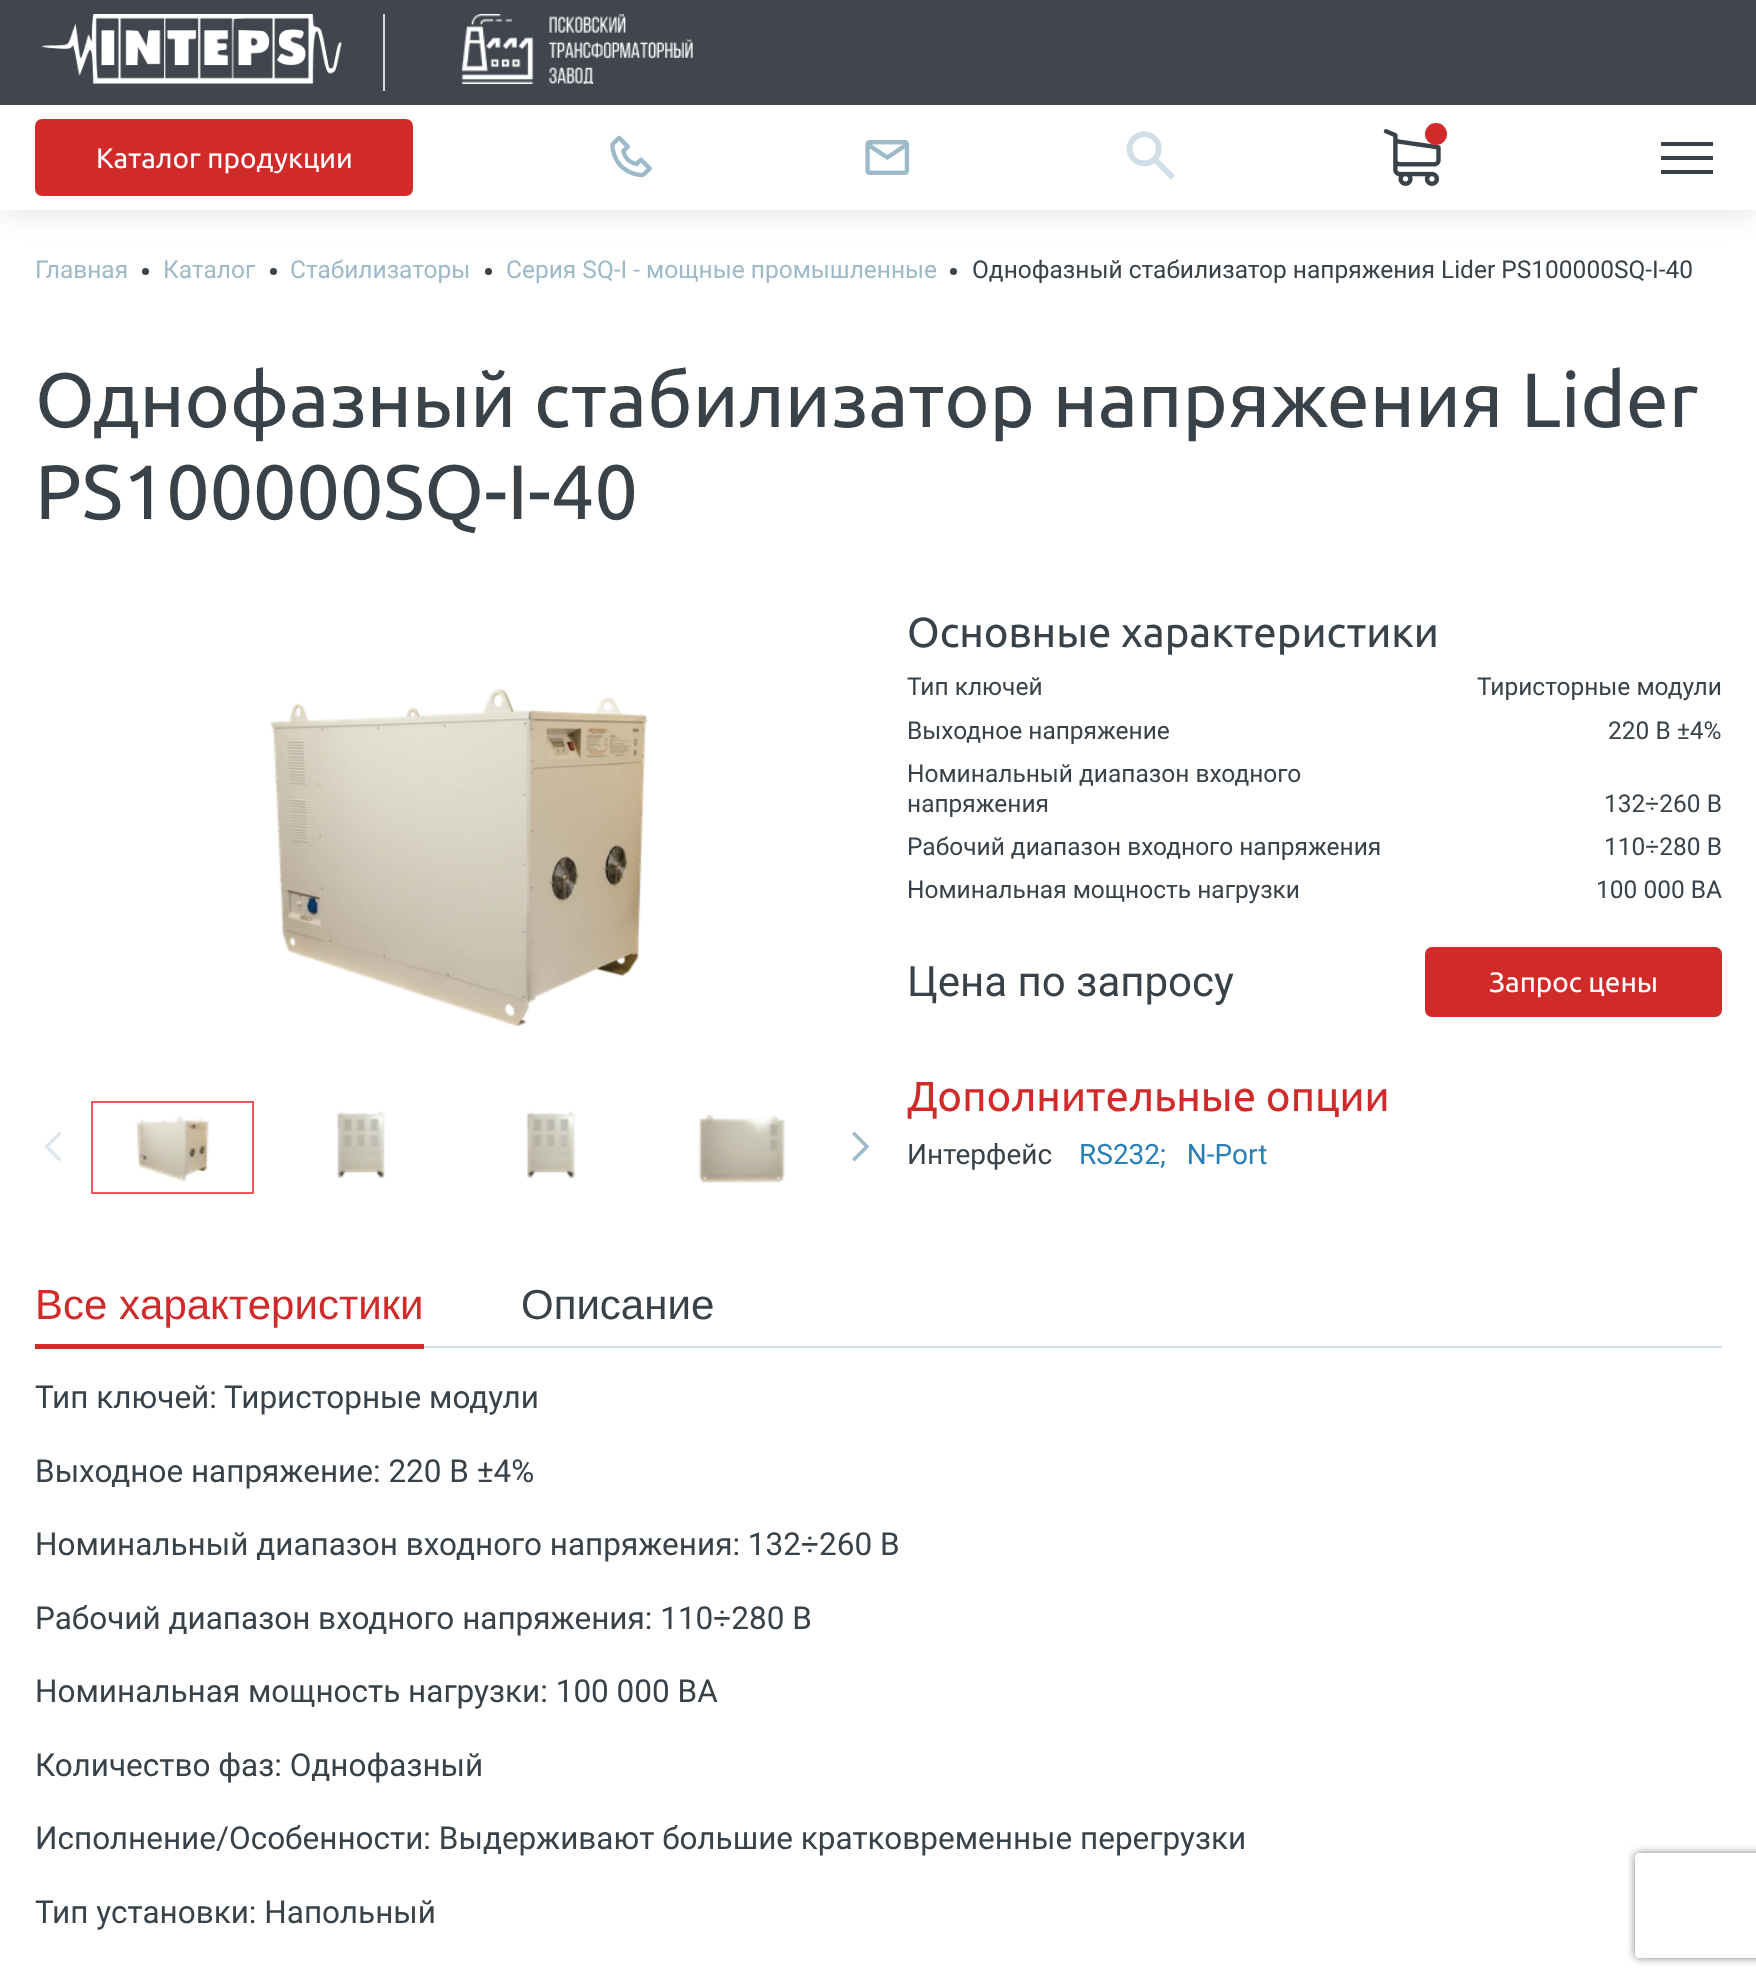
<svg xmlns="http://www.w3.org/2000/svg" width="1756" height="1982">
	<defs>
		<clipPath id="clip1"><path d="M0 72H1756V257H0ZM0 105H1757V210H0Z" clip-rule="evenodd" /></clipPath>
		<clipPath id="clip2"><path d="M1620 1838H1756V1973H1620ZM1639 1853H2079C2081 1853 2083 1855 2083 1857V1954C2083 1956 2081 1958 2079 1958H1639C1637 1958 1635 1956 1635 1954V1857C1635 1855 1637 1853 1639 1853Z" clip-rule="evenodd" /></clipPath>
	</defs>
	<rect width="100%" height="100%" fill="#FFFFFF" />
	<rect x="0" y="0" width="1756" height="105" fill="#41464E" />
	<rect x="383" y="14" width="2" height="77" fill="#D0DEE5" />
	<image x="42" y="14" width="300" height="70" href="assets/img1.png" />
	<image x="461" y="14" width="232" height="70" href="assets/img2.png" />
	<g clip-path="url(#clip1)">
		<rect x="0" y="112" width="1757" height="105" fill="#333333" fill-opacity="0.1" filter="blur(13px)" />
	</g>
	<rect x="37" y="121" width="374" height="73" rx="5" fill="#D02A2A" stroke="#D02A2A" stroke-width="4" />
	<text x="96" y="168" font-family="Ubuntu" font-size="28" fill="#FFFFFF">Каталог продукции</text>
	<image x="610" y="135" width="42" height="43" href="assets/img3.png" />
	<image x="865" y="140" width="45" height="35" href="assets/img4.png" />
	<image x="1126" y="131" width="49" height="49" href="assets/img5.png" />
	<image x="1383" y="129" width="58" height="57" href="assets/img6.png" />
	<circle cx="1436" cy="134" r="11" fill="#D02A2A" />
	<rect x="1661" y="156" width="52" height="4" fill="#394248" />
	<rect x="1661" y="142" width="52" height="4" fill="#394248" />
	<rect x="1661" y="170" width="52" height="4" fill="#394248" />
	<text x="35" y="278" font-family="Roboto" font-size="24.5" fill="#9DBAC9">Главная</text>
	<circle cx="145.5" cy="271.5" r="3.5" fill="#394248" />
	<text x="163" y="278" font-family="Roboto" font-size="24.5" fill="#9DBAC9">Каталог</text>
	<circle cx="273.5" cy="271.5" r="3.5" fill="#394248" />
	<text x="290" y="278" font-family="Roboto" font-size="24.5" fill="#9DBAC9">Cтабилизаторы</text>
	<circle cx="488.5" cy="271.5" r="3.5" fill="#394248" />
	<text x="506" y="278" font-family="Roboto" font-size="24.5" fill="#9DBAC9">Серия SQ-I - мощные промышленные</text>
	<circle cx="953.5" cy="271.5" r="3.5" fill="#394248" />
	<text x="972" y="278" font-family="Roboto" font-size="24.5" fill="#394248">Однофазный стабилизатор напряжения Lider PS100000SQ-I-40</text>
	<g font-family="Ubuntu" font-size="77" fill="#394248">
		<text x="35" y="427">Однофазный стабилизатор напряжения Lider</text>
		<text x="35" y="519">PS100000SQ-I-40</text>
	</g>
	<image x="270" y="688" width="378" height="339" href="assets/img7.png" />
	<path d="M59 1131.5L44 1146.5L59 1161.5L61.5 1159L49 1146.5L61.5 1134Z" fill="#DDE7EC" />
	<rect x="92" y="1102" width="161" height="91" fill="none" stroke="#EC5858" stroke-width="2" />
	<image x="135" y="1116" width="75" height="66" href="assets/img8.png" />
	<image x="336" y="1111" width="49" height="68" href="assets/img9.png" />
	<image x="526" y="1110" width="50" height="69" href="assets/img10.png" />
	<image x="698" y="1114" width="88" height="69" href="assets/img11.png" />
	<path d="M854.5 1161.5L869.5 1146.5L854.5 1131.5L852 1134L864.5 1146.5L852 1159Z" fill="#9DBAC9" />
	<text x="907" y="647" font-family="Ubuntu" font-size="42" fill="#394248">Основные характеристики</text>
	<g font-family="Roboto" font-size="24.5" fill="#394248">
		<text x="907" y="695">Тип ключей</text>
		<text x="1477" y="695">Тиристорные модули</text>
		<text x="907" y="739">Выходное напряжение</text>
		<text x="1608" y="739">220 B ±4%</text>
		<text x="907" y="782">Номинальный диапазон входного</text>
		<text x="907" y="812">напряжения</text>
		<text x="1604" y="812">132÷260 В</text>
		<text x="907" y="855">Рабочий диапазон входного напряжения</text>
		<text x="1604" y="855">110÷280 В</text>
		<text x="907" y="898">Номинальная мощность нагрузки</text>
		<text x="1596" y="898">100 000 ВА</text>
	</g>
	<text x="907" y="996" font-family="Roboto" font-size="42" fill="#394248">Цена по запросу</text>
	<rect x="1427" y="949" width="293" height="66" rx="5" fill="#D02A2A" stroke="#D02A2A" stroke-width="4" />
	<text x="1489" y="992" font-family="Ubuntu" font-size="28" fill="#FFFFFF">Запрос цены</text>
	<text x="907" y="1111" font-family="Ubuntu" font-size="42" fill="#D02A2A">Дополнительные опции</text>
	<text x="907" y="1164" font-family="Roboto" font-size="28" fill="#394248">Интерфейс</text>
	<text x="1079" y="1164" font-family="Roboto" font-size="28" fill="#2980B9" xml:space="preserve">RS232;   N-Port</text>
	<rect x="424" y="1346" width="1298" height="2" fill="#D0DEE5" />
	<text x="35" y="1319" font-family="Liberation Sans" font-size="42" fill="#D02A2A">Все xарактеристики</text>
	<rect x="35" y="1344" width="389" height="5" fill="#D02A2A" />
	<text x="521" y="1319" font-family="Liberation Sans" font-size="42" fill="#394248">Описание</text>
	<g font-family="Roboto" font-size="31.5" fill="#394248">
		<text x="35" y="1408">Тип ключей: Тиристорные модули</text>
		<text x="35" y="1482">Выходное напряжение: 220 B ±4%</text>
		<text x="35" y="1555">Номинальный диапазон входного напряжения: 132÷260 В</text>
		<text x="35" y="1629">Рабочий диапазон входного напряжения: 110÷280 В</text>
		<text x="35" y="1702">Номинальная мощность нагрузки: 100 000 ВА</text>
		<text x="35" y="1776">Количество фаз: Однофазный</text>
		<text x="35" y="1849">Исполнение/Особенности: Выдерживают большие кратковременные перегрузки</text>
		<text x="35" y="1923">Тип установки: Напольный</text>
	</g>
	<g clip-path="url(#clip2)">
		<rect x="1635" y="1853" width="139" height="105" rx="4" fill="#808080" filter="blur(4.5px)" />
	</g>
</svg>
